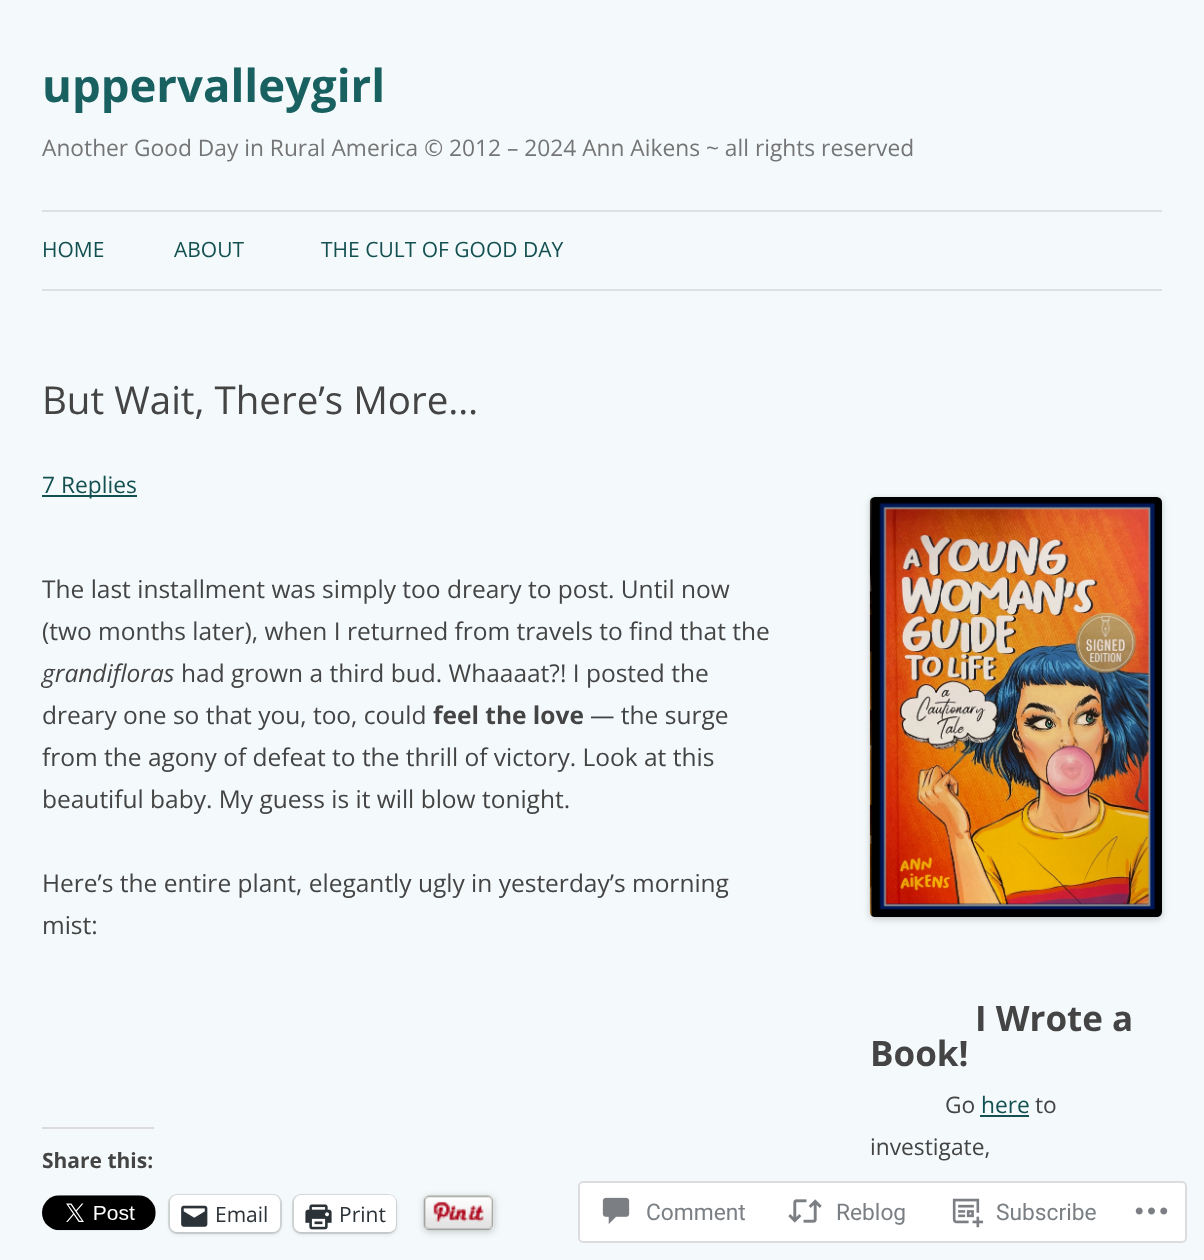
<svg xmlns="http://www.w3.org/2000/svg" width="1204" height="1260">
	<defs>
		<clipPath id="clip1"><path d="M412 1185H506V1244H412ZM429 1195H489C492 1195 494 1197 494 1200V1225C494 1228 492 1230 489 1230H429C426 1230 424 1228 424 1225V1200C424 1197 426 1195 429 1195Z" clip-rule="evenodd" /></clipPath>
	</defs>
	<rect width="100%" height="100%" fill="#F4FAFB" />
	<text x="42" y="102" font-family="Open Sans" font-size="45.5" font-weight="700" fill="#196061">uppervalleygirl</text>
	<text x="42" y="156" font-family="Open Sans" font-size="22.75" fill="#757575">Another Good Day in Rural America © 2012 – 2024 Ann Aikens ~ all rights reserved</text>
	<rect x="42" y="210" width="1120" height="2" fill="#DCE1E2" />
	<rect x="42" y="289" width="1120" height="2" fill="#DCE1E2" />
	<g font-family="Open Sans" font-size="21" fill="#145051">
		<text x="42" y="257">HOME</text>
		<text x="174" y="257">ABOUT</text>
		<text x="321" y="257">THE CULT OF GOOD DAY</text>
	</g>
	<text x="42" y="414" font-family="Open Sans" font-size="38.5" fill="#444444">But Wait, There’s More…</text>
	<rect x="42" y="495" width="95" height="2" fill="#145051" />
	<text x="42" y="493" font-family="Open Sans" font-size="22.75" fill="#145051">7 Replies</text>
	<g font-family="Open Sans" font-size="24.5" fill="#444444">
		<text x="42" y="598">The last installment was simply too dreary to post. Until now</text>
		<text x="42" y="640">(two months later), when I returned from travels to find that the</text>
	</g>
	<text x="42" y="682" font-family="Open Sans" font-size="24.5" font-style="italic" fill="#444444">grandifloras</text>
	<g font-family="Open Sans" font-size="24.5" fill="#444444">
		<text x="181" y="682">had grown a third bud. Whaaaat?! I posted the</text>
		<text x="42" y="724">dreary one so that you, too, could</text>
	</g>
	<text x="433" y="724" font-family="Open Sans" font-size="24.5" font-weight="700" fill="#444444">feel the love</text>
	<g font-family="Open Sans" font-size="24.5" fill="#444444">
		<text x="590" y="724">— the surge</text>
		<text x="42" y="766">from the agony of defeat to the thrill of victory. Look at this</text>
		<text x="42" y="808">beautiful baby. My guess is it will blow tonight.</text>
		<text x="42" y="892">Here’s the entire plant, elegantly ugly in yesterday’s morning</text>
		<text x="42" y="934">mist:</text>
	</g>
	<rect x="42" y="1127" width="112" height="2" fill="#DCDCDE" />
	<text x="42" y="1168" font-family="Open Sans" font-size="21" font-weight="700" fill="#444444">Share this:</text>
	<image x="42" y="1195" width="114" height="36" href="assets/img1.png" />
	<rect x="169" y="1195" width="112" height="38" rx="8" fill="none" stroke="#D7DCDD" stroke-width="2" />
	<rect x="170" y="1197" width="110" height="37" rx="7" fill="#000000" fill-opacity="0.12" filter="blur(2px)" />
	<rect x="170" y="1195" width="110" height="37" rx="7" fill="#FFFFFF" />
	<image x="181" y="1205" width="27" height="22" href="assets/img2.png" />
	<text x="215" y="1222" font-family="Open Sans" font-size="21" fill="#2C3338">Email</text>
	<rect x="293" y="1195" width="103" height="38" rx="8" fill="none" stroke="#D7DCDD" stroke-width="2" />
	<rect x="294" y="1197" width="102" height="37" rx="7" fill="#000000" fill-opacity="0.12" filter="blur(2px)" />
	<rect x="294" y="1195" width="102" height="37" rx="7" fill="#FFFFFF" />
	<image x="305" y="1204" width="27" height="26" href="assets/img3.png" />
	<text x="339" y="1222" font-family="Open Sans" font-size="21" fill="#2C3338">Print</text>
	<g clip-path="url(#clip1)">
		<rect x="424" y="1197" width="70" height="35" rx="5" fill="#000000" fill-opacity="0.2" filter="blur(3.5px)" />
	</g>
	<image x="423" y="1195" width="71" height="36" href="assets/img4.png" />
	<rect x="870" y="499" width="292" height="420" rx="5" fill="#000000" fill-opacity="0.2" filter="blur(3.5px)" />
	<image x="869" y="497" width="293" height="420" href="assets/img5.png" />
	<g font-family="Open Sans" font-size="35" font-weight="700" fill="#444444">
		<text x="975" y="1031">I Wrote a</text>
		<text x="870" y="1066">Book!</text>
	</g>
	<text x="945" y="1113" font-family="Open Sans" font-size="22.75" fill="#444444">Go</text>
	<text x="981" y="1113" font-family="Open Sans" font-size="22.75" fill="#145051">here</text>
	<rect x="980" y="1115" width="49" height="2" fill="#145051" />
	<g font-family="Open Sans" font-size="22.75" fill="#444444">
		<text x="1035" y="1113">to</text>
		<text x="870" y="1155">investigate,</text>
	</g>
	<rect x="578" y="1181" width="609" height="62" rx="5" fill="#FFFFFF" fill-opacity="0.98" />
	<rect x="579" y="1182" width="607" height="60" rx="4" fill="none" stroke="#DCDCDE" stroke-opacity="0.98" stroke-width="2" />
	<image x="602" y="1197" width="28" height="27" href="assets/img6.png" />
	<text x="646" y="1220" font-family="Roboto" font-size="22.75" fill="#7A7F84">Comment</text>
	<image x="788" y="1199" width="34" height="24" href="assets/img7.png" />
	<text x="836" y="1220" font-family="Roboto" font-size="22.75" fill="#7A7F84">Reblog</text>
	<image x="952" y="1198" width="32" height="30" href="assets/img8.png" />
	<text x="996" y="1220" font-family="Roboto" font-size="22.75" fill="#7A7F84">Subscribe</text>
	<image x="1135" y="1207" width="33" height="8" href="assets/img9.png" />
</svg>
